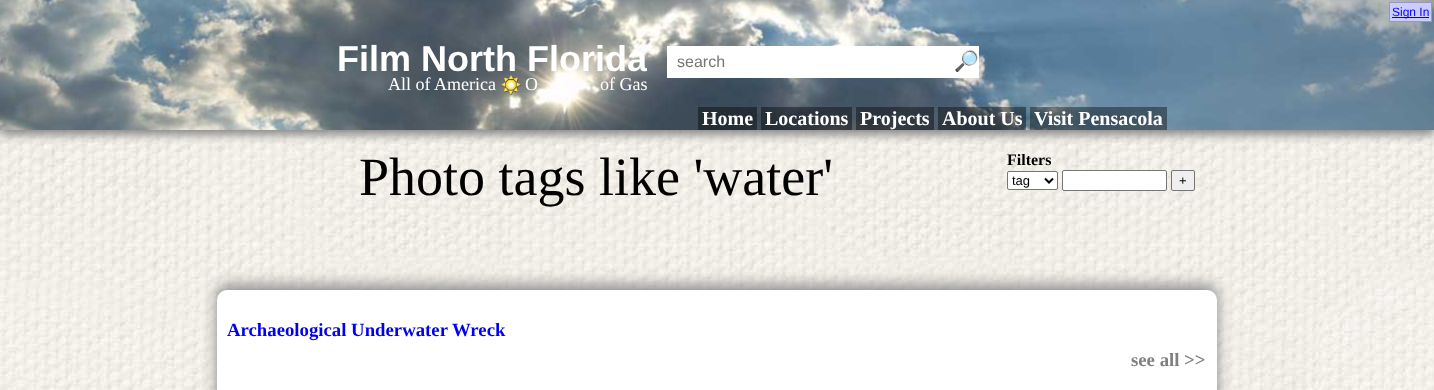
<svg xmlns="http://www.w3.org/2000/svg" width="1434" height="390">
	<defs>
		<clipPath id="clip1"><rect x="247" y="38" width="400" height="42" /></clipPath>
	</defs>
	<rect width="100%" height="100%" fill="#FFFFFF" />
	<image x="0" y="130" width="1434" height="260" href="assets/img1.png" />
	<rect x="0" y="5" width="1434" height="130" fill="#888888" filter="blur(5px)" />
	<image x="0" y="0" width="1434" height="130" href="assets/img2.png" />
	<rect x="1389.5" y="2.5" width="42" height="19" fill="#CCCCFF" stroke="#9797C0" />
	<rect x="1392" y="17" width="37" height="1" fill="#0000FF" />
	<text x="1392" y="16" font-family="Liberation Sans" font-size="12" fill="#0000FF">Sign In</text>
	<g clip-path="url(#clip1)">
		<text x="337" y="71" font-family="Liberation Sans" font-size="36" font-weight="700" fill="#FFFFFF">Film North Florida</text>
	</g>
	<rect x="667" y="46" width="312" height="32" fill="#FFFFFF" />
	<text x="677" y="67" font-family="Liberation Sans" font-size="16" fill="#757575">search</text>
	<text x="954" y="68" font-family="Noto Color Emoji" font-size="20" fill="#000000">🔎</text>
	<text x="388" y="90" font-family="Liberation Serif" font-size="18" fill="#FFFFFF">All of America</text>
	<image x="501" y="75" width="20" height="20" href="assets/img3.png" />
	<g font-family="Liberation Serif" font-size="18" fill="#FFFFFF">
		<text x="525" y="90">O</text>
		<text x="600" y="90">of Gas</text>
	</g>
	<rect x="698" y="107" width="59" height="23" fill="#000000" fill-opacity="0.4" />
	<text x="702" y="125" font-family="Liberation Serif" font-size="20" font-weight="700" fill="#FFFFFF">Home</text>
	<rect x="761" y="107" width="91" height="23" fill="#000000" fill-opacity="0.4" />
	<text x="765" y="125" font-family="Liberation Serif" font-size="20" font-weight="700" fill="#FFFFFF">Locations</text>
	<rect x="856" y="107" width="78" height="23" fill="#000000" fill-opacity="0.4" />
	<text x="860" y="125" font-family="Liberation Serif" font-size="20" font-weight="700" fill="#FFFFFF">Projects</text>
	<rect x="938" y="107" width="88" height="23" fill="#000000" fill-opacity="0.4" />
	<text x="942" y="125" font-family="Liberation Serif" font-size="20" font-weight="700" fill="#FFFFFF">About Us</text>
	<rect x="1030" y="107" width="137" height="23" fill="#000000" fill-opacity="0.4" />
	<text x="1034" y="125" font-family="Liberation Serif" font-size="20" font-weight="700" fill="#FFFFFF">Visit Pensacola</text>
	<text x="359" y="195" font-family="Liberation Serif" font-size="54" fill="#000000">Photo tags like 'water'</text>
	<text x="1007" y="165" font-family="Liberation Serif" font-size="16" font-weight="700" fill="#000000">Filters</text>
	<rect x="1007.5" y="171.5" width="50" height="18" rx="1.5" fill="#FFFFFF" stroke="#767676" />
	<path d="M1045 178.5L1049 182.5L1053 178.5" fill="none" stroke="#000000" stroke-width="2" />
	<text x="1012" y="185" font-family="Liberation Sans" font-size="13" fill="#000000">tag</text>
	<rect x="1062.5" y="170.5" width="104" height="20" rx="1.5" fill="#FFFFFF" stroke="#767676" />
	<rect x="1171.5" y="170.5" width="23" height="20" rx="1.5" fill="#EFEFEF" stroke="#767676" />
	<text x="1179" y="185" font-family="Liberation Sans" font-size="13" fill="#000000">+</text>
	<rect x="217" y="285" width="1000" height="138" rx="10" fill="#888888" filter="blur(7.5px)" />
	<rect x="217" y="290" width="1000" height="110" rx="10" fill="#FFFFFF" />
	<text x="227" y="336" font-family="Liberation Serif" font-size="18.75" font-weight="700" fill="#0000EE">Archaeological Underwater Wreck</text>
	<text x="1131" y="366" font-family="Liberation Serif" font-size="18.75" font-weight="700" fill="#808080">see all &gt;&gt;</text>
</svg>
